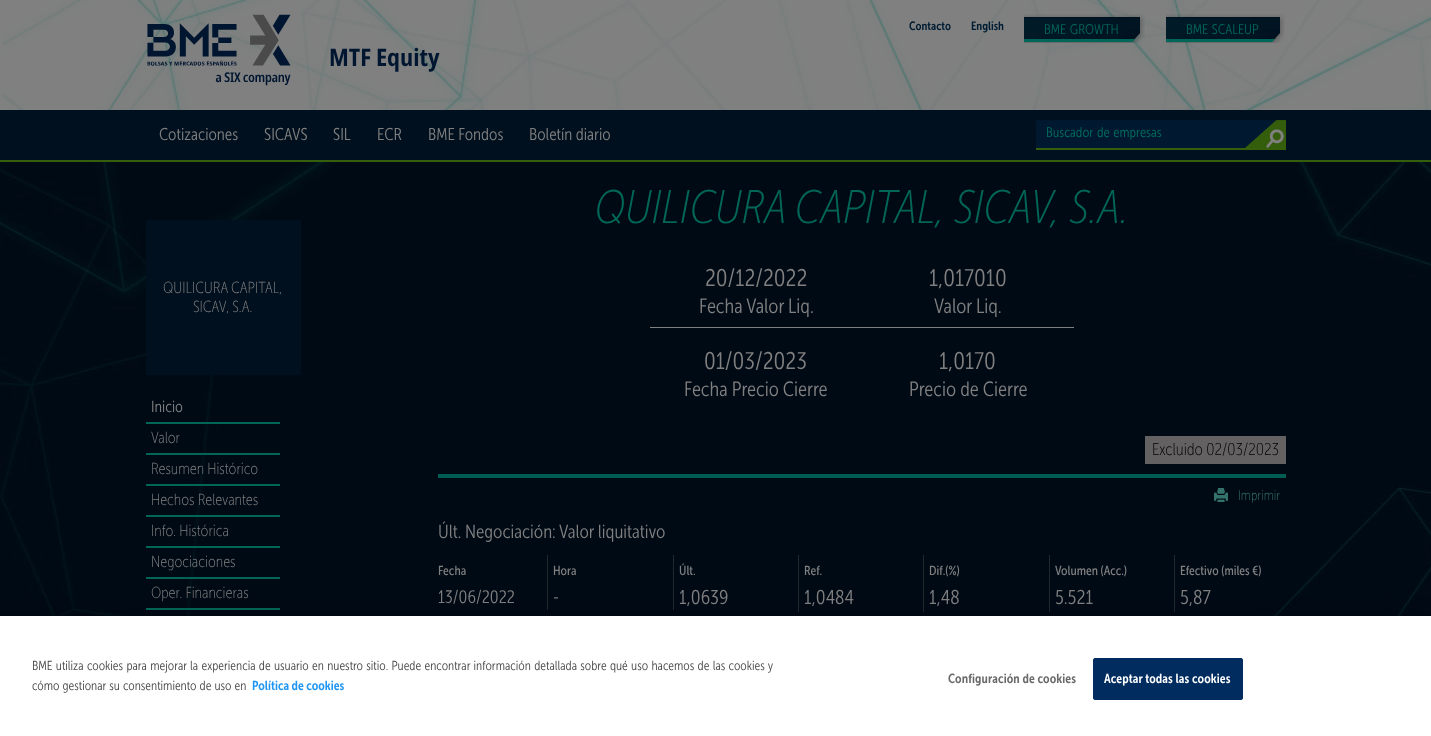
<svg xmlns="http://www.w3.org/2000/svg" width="1431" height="736">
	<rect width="100%" height="100%" fill="#808080" />
	<image x="2" y="0" width="1429" height="110" href="assets/img1.png" />
	<g font-family="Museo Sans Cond" font-size="12" font-weight="600" fill="#001C32">
		<text x="909" y="30">Contacto</text>
		<text x="971" y="30">English</text>
	</g>
	<image x="1024" y="14" width="121" height="29" href="assets/img2.png" />
	<text x="1044" y="34" word-spacing="1" font-family="Museo Sans Cond" font-size="14" font-weight="300" fill="#006757">BME GROWTH</text>
	<image x="1166" y="14" width="119" height="29" href="assets/img3.png" />
	<text x="1186" y="34" word-spacing="1" font-family="Museo Sans Cond" font-size="14" font-weight="300" fill="#006757">BME SCALEUP</text>
	<image x="147" y="14" width="144" height="72" href="assets/img4.png" />
	<text x="329" y="66" font-family="Noto Sans" font-size="24" font-weight="700" fill="#001630">MTF Equity</text>
	<rect x="0" y="110" width="1431" height="50" fill="#00101E" />
	<rect x="0" y="160" width="1431" height="2" fill="#355E0D" />
	<g font-family="Museo Sans Cond" font-size="17" font-weight="300" fill="#808080">
		<text x="159" y="140">Cotizaciones</text>
		<text x="264" y="140">SICAVS</text>
		<text x="333" y="140">SIL</text>
		<text x="377" y="140">ECR</text>
		<text x="428" y="140">BME Fondos</text>
		<text x="529" y="140">Boletín diario</text>
	</g>
	<rect x="1036" y="120" width="241" height="28" fill="#001930" />
	<image x="1245" y="120" width="41" height="28" href="assets/img5.png" />
	<rect x="1036" y="120" width="250" height="1" fill="#000000" fill-opacity="0.07" />
	<rect x="1036" y="148" width="250" height="2" fill="#355E0D" />
	<text x="1046" y="137" word-spacing="1" font-family="Museo Sans Cond" font-size="14" font-weight="300" fill="#006E5D">Buscador de empresas</text>
	<image x="0" y="162" width="1431" height="454" href="assets/img6.png" />
	<rect x="146" y="220" width="155" height="155" fill="#00101E" />
	<g font-family="Museo Sans Cond" font-size="16" font-weight="200" fill="#808080">
		<text x="163" y="293">QUILICURA CAPITAL,</text>
		<text x="193" y="312">SICAV, S.A.</text>
	</g>
	<rect x="146" y="422" width="134" height="2" fill="#006757" />
	<text x="151" y="412" font-family="Museo Sans Cond" font-size="16" font-weight="300" fill="#808080">Inicio</text>
	<rect x="146" y="453" width="134" height="2" fill="#006757" />
	<text x="151" y="443" font-family="Museo Sans Cond" font-size="16" font-weight="200" fill="#808080">Valor</text>
	<rect x="146" y="484" width="134" height="2" fill="#006757" />
	<text x="151" y="474" font-family="Museo Sans Cond" font-size="16" font-weight="200" fill="#808080">Resumen Histórico</text>
	<rect x="146" y="515" width="134" height="2" fill="#006757" />
	<text x="151" y="505" font-family="Museo Sans Cond" font-size="16" font-weight="200" fill="#808080">Hechos Relevantes</text>
	<rect x="146" y="546" width="134" height="2" fill="#006757" />
	<text x="151" y="536" font-family="Museo Sans Cond" font-size="16" font-weight="200" fill="#808080">Info. Histórica</text>
	<rect x="146" y="577" width="134" height="2" fill="#006757" />
	<text x="151" y="567" font-family="Museo Sans Cond" font-size="16" font-weight="200" fill="#808080">Negociaciones</text>
	<rect x="146" y="608" width="134" height="2" fill="#006757" />
	<text x="151" y="598" font-family="Museo Sans Cond" font-size="16" font-weight="200" fill="#808080">Oper. Financieras</text>
	<rect x="438" y="474" width="848" height="4" fill="#005D54" />
	<text x="595" y="223" font-family="Museo Sans Cond" font-size="47" font-weight="200" font-style="italic" fill="#006757">QUILICURA CAPITAL, SICAV, S.A.</text>
	<rect x="650" y="327" width="424" height="1" fill="#808080" />
	<text x="705" y="286" font-family="Museo Sans Cond" font-size="24" font-weight="300" fill="#808080">20/12/2022</text>
	<text x="699" y="313" font-family="Museo Sans Cond" font-size="20.5" font-weight="300" fill="#808080">Fecha Valor Liq.</text>
	<text x="929" y="286" font-family="Museo Sans Cond" font-size="24" font-weight="300" fill="#808080">1,017010</text>
	<text x="934" y="313" font-family="Museo Sans Cond" font-size="20.5" font-weight="300" fill="#808080">Valor Liq.</text>
	<text x="704" y="369" font-family="Museo Sans Cond" font-size="24" font-weight="300" fill="#808080">01/03/2023</text>
	<text x="684" y="396" font-family="Museo Sans Cond" font-size="20.5" font-weight="300" fill="#808080">Fecha Precio Cierre</text>
	<text x="939" y="369" font-family="Museo Sans Cond" font-size="24" font-weight="300" fill="#808080">1,0170</text>
	<text x="909" y="396" font-family="Museo Sans Cond" font-size="20.5" font-weight="300" fill="#808080">Precio de Cierre</text>
	<rect x="1145" y="436" width="141" height="28" fill="#636162" />
	<text x="1152" y="455" font-family="Museo Sans Cond" font-size="17" font-weight="200" fill="#000000">Excluido 02/03/2023</text>
	<image x="1214" y="488" width="14" height="14" href="assets/img7.png" />
	<text x="1238" y="500" font-family="Museo Sans Cond" font-size="14" font-weight="200" fill="#33736A">Imprimir</text>
	<text x="438" y="538" font-family="Museo Sans Cond" font-size="19" font-weight="300" fill="#808080">Últ. Negociación: Valor liquitativo</text>
	<rect x="547" y="555" width="1" height="55" fill="#202A2C" />
	<text x="438" y="575" font-family="Museo Sans Cond" font-size="13" fill="#808080">Fecha</text>
	<text x="438" y="603" font-family="Museo Sans Cond" font-size="18" font-weight="300" fill="#808080">13/06/2022</text>
	<rect x="673" y="555" width="1" height="55" fill="#202A2C" />
	<text x="553" y="575" font-family="Museo Sans Cond" font-size="13" fill="#808080">Hora</text>
	<text x="553" y="603" font-family="Museo Sans Cond" font-size="18" font-weight="300" fill="#808080">-</text>
	<rect x="798" y="555" width="1" height="57" fill="#202A2C" />
	<text x="679" y="575" font-family="Museo Sans Cond" font-size="13" fill="#808080">Últ.</text>
	<text x="679" y="604" font-family="Museo Sans Cond" font-size="20" font-weight="300" fill="#808080">1,0639</text>
	<rect x="923" y="555" width="1" height="57" fill="#202A2C" />
	<text x="804" y="575" font-family="Museo Sans Cond" font-size="13" fill="#808080">Ref.</text>
	<text x="804" y="604" font-family="Museo Sans Cond" font-size="20" font-weight="300" fill="#808080">1,0484</text>
	<rect x="1049" y="555" width="1" height="57" fill="#202A2C" />
	<text x="929" y="575" font-family="Museo Sans Cond" font-size="13" fill="#808080">Dif.(%)</text>
	<text x="929" y="604" font-family="Museo Sans Cond" font-size="20" font-weight="300" fill="#808080">1,48</text>
	<rect x="1174" y="555" width="1" height="57" fill="#202A2C" />
	<text x="1055" y="575" font-family="Museo Sans Cond" font-size="13" fill="#808080">Volumen (Acc.)</text>
	<text x="1055" y="604" font-family="Museo Sans Cond" font-size="20" font-weight="300" fill="#808080">5.521</text>
	<text x="1180" y="575" font-family="Museo Sans Cond" font-size="13" fill="#808080">Efectivo (miles €)</text>
	<text x="1180" y="604" font-family="Museo Sans Cond" font-size="20" font-weight="300" fill="#808080">5,87</text>
	<rect x="0" y="616" width="1431" height="120" fill="#000000" fill-opacity="0.2" filter="blur(9px)" />
	<rect x="0" y="616" width="1431" height="120" fill="#FFFFFF" />
	<g font-family="Museo Sans Cond" font-size="13" font-weight="300" fill="#494949">
		<text x="32" y="670" word-spacing="0.75">BME utiliza cookies para mejorar la experiencia de usuario en nuestro sitio. Puede encontrar información detallada sobre qué uso hacemos de las cookies y</text>
		<text x="32" y="690" word-spacing="0.5">cómo gestionar su consentimiento de uso en</text>
	</g>
	<text x="252" y="690" font-family="Museo Sans Cond" font-size="13" font-weight="600" fill="#2196F3">Política de cookies</text>
	<text x="948" y="683" font-family="Museo Sans Cond" font-size="13" font-weight="600" letter-spacing="0.1" fill="#696969">Configuración de cookies</text>
	<rect x="1093.5" y="658.5" width="149" height="41" rx="1.5" fill="#002C5F" stroke="#002C5F" />
	<text x="1104" y="683" font-family="Museo Sans Cond" font-size="13" font-weight="600" letter-spacing="0.1" fill="#FFFFFF">Aceptar todas las cookies</text>
</svg>
